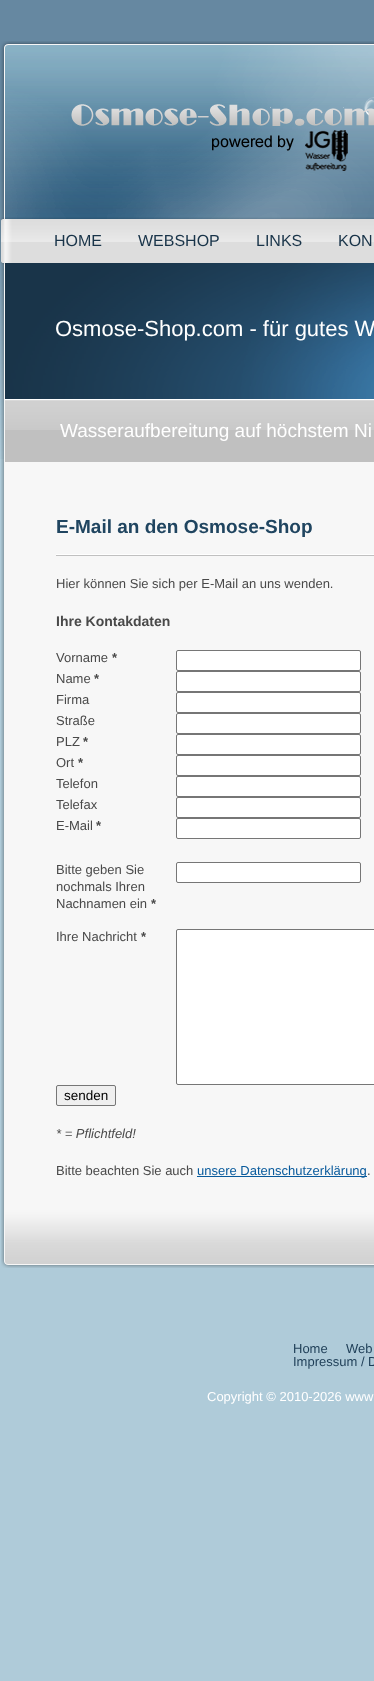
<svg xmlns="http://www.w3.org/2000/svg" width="374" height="1681">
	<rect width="100%" height="100%" fill="#AFCBD9" />
	<image x="0" y="0" width="374" height="459" href="assets/img1.png" />
	<image x="0" y="41" width="374" height="178" href="assets/img2.png" />
	<image x="71" y="97" width="303" height="74" href="assets/img3.png" />
	<image x="0" y="219" width="374" height="44" href="assets/img4.png" />
	<g font-family="Liberation Sans" font-size="16" fill="#193449">
		<text x="54" y="246">HOME</text>
		<text x="138" y="246">WEBSHOP</text>
		<text x="256" y="246">LINKS</text>
		<text x="338" y="246">KON</text>
	</g>
	<image x="0" y="263" width="374" height="137" href="assets/img5.png" />
	<text x="55" y="336" font-family="Liberation Sans" font-size="22" fill="#FFFFFF">Osmose-Shop.com - für gutes W</text>
	<image x="1" y="400" width="373" height="810" href="assets/img6.png" />
	<image x="5" y="400" width="369" height="62" href="assets/img7.png" />
	<text x="60" y="437" font-family="Liberation Sans" font-size="19" fill="#FFFFFF">Wasseraufbereitung auf höchstem Ni</text>
	<image x="56" y="554" width="318" height="2" href="assets/img8.png" />
	<text x="56" y="533" font-family="Liberation Sans" font-size="19" font-weight="700" fill="#204560">E-Mail an den Osmose-Shop</text>
	<text x="56" y="588" font-family="Liberation Sans" font-size="13" fill="#494949">Hier können Sie sich per E-Mail an uns wenden.</text>
	<text x="56" y="626" font-family="Liberation Sans" font-size="14" font-weight="700" fill="#494949">Ihre Kontakdaten</text>
	<text x="56" y="662" font-family="Liberation Sans" font-size="13" fill="#494949">Vorname</text>
	<text x="112" y="662" font-family="Liberation Sans" font-size="13" font-weight="700" fill="#494949">*</text>
	<rect x="176.5" y="650.5" width="184" height="20" rx="1.5" fill="#FFFFFF" stroke="#767676" />
	<text x="56" y="683" font-family="Liberation Sans" font-size="13" fill="#494949">Name</text>
	<text x="94" y="683" font-family="Liberation Sans" font-size="13" font-weight="700" fill="#494949">*</text>
	<rect x="176.5" y="671.5" width="184" height="20" rx="1.5" fill="#FFFFFF" stroke="#767676" />
	<text x="56" y="704" font-family="Liberation Sans" font-size="13" fill="#494949">Firma</text>
	<rect x="176.5" y="692.5" width="184" height="20" rx="1.5" fill="#FFFFFF" stroke="#767676" />
	<text x="56" y="725" font-family="Liberation Sans" font-size="13" fill="#494949">Straße</text>
	<rect x="176.5" y="713.5" width="184" height="20" rx="1.5" fill="#FFFFFF" stroke="#767676" />
	<text x="56" y="746" font-family="Liberation Sans" font-size="13" fill="#494949">PLZ</text>
	<text x="83" y="746" font-family="Liberation Sans" font-size="13" font-weight="700" fill="#494949">*</text>
	<rect x="176.5" y="734.5" width="184" height="20" rx="1.5" fill="#FFFFFF" stroke="#767676" />
	<text x="56" y="767" font-family="Liberation Sans" font-size="13" fill="#494949">Ort</text>
	<text x="78" y="767" font-family="Liberation Sans" font-size="13" font-weight="700" fill="#494949">*</text>
	<rect x="176.5" y="755.5" width="184" height="20" rx="1.5" fill="#FFFFFF" stroke="#767676" />
	<text x="56" y="788" font-family="Liberation Sans" font-size="13" fill="#494949">Telefon</text>
	<rect x="176.5" y="776.5" width="184" height="20" rx="1.5" fill="#FFFFFF" stroke="#767676" />
	<text x="56" y="809" font-family="Liberation Sans" font-size="13" fill="#494949">Telefax</text>
	<rect x="176.5" y="797.5" width="184" height="20" rx="1.5" fill="#FFFFFF" stroke="#767676" />
	<text x="56" y="830" font-family="Liberation Sans" font-size="13" fill="#494949">E-Mail</text>
	<text x="96" y="830" font-family="Liberation Sans" font-size="13" font-weight="700" fill="#494949">*</text>
	<rect x="176.5" y="818.5" width="184" height="20" rx="1.5" fill="#FFFFFF" stroke="#767676" />
	<g font-family="Liberation Sans" font-size="13" fill="#494949">
		<text x="56" y="874">Bitte geben Sie</text>
		<text x="56" y="891">nochmals Ihren</text>
		<text x="56" y="908">Nachnamen ein</text>
	</g>
	<text x="151" y="908" font-family="Liberation Sans" font-size="13" font-weight="700" fill="#494949">*</text>
	<rect x="176.5" y="862.5" width="184" height="20" rx="1.5" fill="#FFFFFF" stroke="#767676" />
	<text x="56" y="941" font-family="Liberation Sans" font-size="13" fill="#494949">Ihre Nachricht</text>
	<text x="141" y="941" font-family="Liberation Sans" font-size="13" font-weight="700" fill="#494949">*</text>
	<rect x="176.5" y="929.5" width="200" height="155" rx="1.5" fill="#FFFFFF" stroke="#767676" />
	<rect x="56.5" y="1085.5" width="59" height="20" rx="1.5" fill="#EFEFEF" stroke="#767676" />
	<text x="64" y="1100" font-family="Liberation Sans" font-size="13.5" fill="#000000">senden</text>
	<text x="56" y="1138" font-family="Liberation Sans" font-size="13" font-style="italic" fill="#494949">* = Pflichtfeld!</text>
	<text x="56" y="1175" font-family="Liberation Sans" font-size="13" fill="#494949">Bitte beachten Sie auch</text>
	<rect x="197" y="1176" width="170" height="1" fill="#085A9C" />
	<text x="197" y="1175" font-family="Liberation Sans" font-size="13" fill="#085A9C">unsere Datenschutzerklärung</text>
	<text x="367" y="1175" font-family="Liberation Sans" font-size="13" fill="#494949">.</text>
	<image x="1" y="1210" width="373" height="58" href="assets/img9.png" />
	<g font-family="Liberation Sans" font-size="13" fill="#1D3D56">
		<text x="293" y="1353">Home</text>
		<text x="346" y="1353">Web</text>
		<text x="293" y="1366">Impressum / D</text>
	</g>
	<text x="207" y="1401" font-family="Liberation Sans" font-size="13" fill="#FFFFFF">Copyright © 2010-2026 www</text>
</svg>
